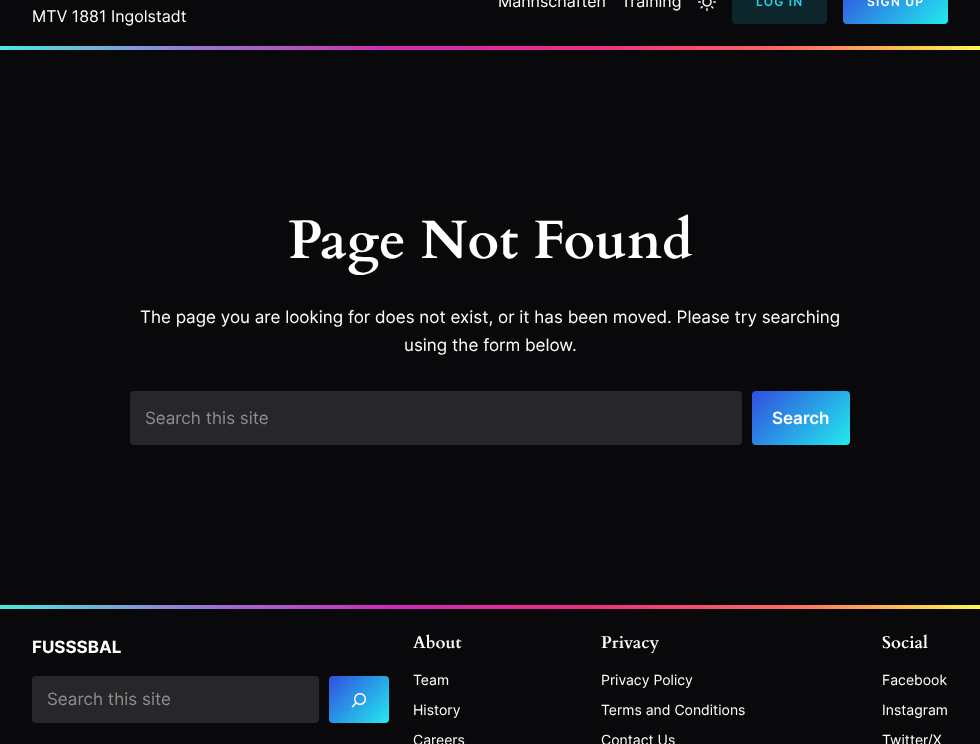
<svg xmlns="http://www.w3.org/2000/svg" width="980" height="744">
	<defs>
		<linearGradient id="g1" gradientUnits="userSpaceOnUse" x1="858" y1="-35" x2="933" y2="39"><stop offset="0" stop-color="#314EDF" /><stop offset="1" stop-color="#22EAEE" /></linearGradient>
		<linearGradient id="g2" gradientUnits="userSpaceOnUse" x1="244" y1="-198" x2="736" y2="294"><stop offset="0" stop-color="#4AEADC" /><stop offset="0.2" stop-color="#9778D1" /><stop offset="0.4" stop-color="#CF2ABA" /><stop offset="0.6" stop-color="#EE2C82" /><stop offset="0.8" stop-color="#FB6962" /><stop offset="1" stop-color="#FEF84C" /></linearGradient>
		<linearGradient id="g3" gradientUnits="userSpaceOnUse" x1="763" y1="380" x2="839" y2="456"><stop offset="0" stop-color="#314EDF" /><stop offset="1" stop-color="#22EAEE" /></linearGradient>
		<linearGradient id="g4" gradientUnits="userSpaceOnUse" x1="244" y1="361" x2="736" y2="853"><stop offset="0" stop-color="#4AEADC" /><stop offset="0.2" stop-color="#9778D1" /><stop offset="0.4" stop-color="#CF2ABA" /><stop offset="0.6" stop-color="#EE2C82" /><stop offset="0.8" stop-color="#FB6962" /><stop offset="1" stop-color="#FEF84C" /></linearGradient>
		<linearGradient id="g5" gradientUnits="userSpaceOnUse" x1="332" y1="673" x2="386" y2="726"><stop offset="0" stop-color="#314EDF" /><stop offset="1" stop-color="#22EAEE" /></linearGradient>
	</defs>
	<rect width="100%" height="100%" fill="#09090B" />
	<g font-family="Inter" font-size="16" fill="#FFFFFF">
		<text x="498" y="7">Mannschaften</text>
		<text x="621" y="7">Training</text>
	</g>
	<image x="698" y="0" width="18" height="11" href="assets/img1.png" />
	<text x="756" y="6" font-family="Inter" font-size="12" font-weight="600" letter-spacing="1.25" fill="#22D3EE">LOG IN</text>
	<rect x="732" y="-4" width="95" height="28" rx="4" fill="#22D3EE" fill-opacity="0.15" />
	<rect x="843" y="-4" width="105" height="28" rx="4" fill="url(#g1)" />
	<text x="867" y="6" font-family="Inter" font-size="12" font-weight="600" letter-spacing="1.25" fill="#FFFFFF">SIGN UP</text>
	<text x="32" y="22" font-family="Inter" font-size="16" fill="#FFFFFF">MTV 1881 Ingolstadt</text>
	<rect x="0" y="46" width="980" height="4" fill="url(#g2)" />
	<text x="288" y="258" font-family="Cardo" font-size="54.25" font-weight="700" fill="#FFFFFF">Page Not Found</text>
	<g font-family="Inter" font-size="17.05" fill="#FFFFFF">
		<text x="140" y="323">The page you are looking for does not exist, or it has been moved. Please try searching</text>
		<text x="404" y="351">using the form below.</text>
	</g>
	<rect x="130" y="391" width="612" height="54" rx="4" fill="#27272A" />
	<text x="145" y="424" font-family="Inter" font-size="17" fill="#8E8E90">Search this site</text>
	<rect x="752" y="391" width="98" height="54" rx="4" fill="url(#g3)" />
	<text x="772" y="424" font-family="Inter" font-size="17" font-weight="600" fill="#FFFFFF">Search</text>
	<rect x="0" y="605" width="980" height="4" fill="url(#g4)" />
	<text x="32" y="653" font-family="Inter" font-size="17" font-weight="700" fill="#FFFFFF">FUSSSBAL</text>
	<rect x="32" y="676" width="287" height="47" rx="4" fill="#27272A" />
	<text x="47" y="705" font-family="Inter" font-size="17.05" fill="#8E8E90">Search this site</text>
	<rect x="329" y="676" width="60" height="47" rx="4" fill="url(#g5)" />
	<image x="351" y="693" width="16" height="15" href="assets/img2.png" />
	<text x="413" y="648" font-family="Cardo" font-size="17" font-weight="700" fill="#FFFFFF">About</text>
	<g font-family="Inter" font-size="14" fill="#FFFFFF">
		<text x="413" y="685">Team</text>
		<text x="413" y="715">History</text>
		<text x="413" y="745">Careers</text>
	</g>
	<text x="601" y="648" font-family="Cardo" font-size="17" font-weight="700" fill="#FFFFFF">Privacy</text>
	<g font-family="Inter" font-size="14" fill="#FFFFFF">
		<text x="601" y="685">Privacy Policy</text>
		<text x="601" y="715">Terms and Conditions</text>
		<text x="601" y="745">Contact Us</text>
	</g>
	<text x="882" y="648" font-family="Cardo" font-size="17" font-weight="700" fill="#FFFFFF">Social</text>
	<g font-family="Inter" font-size="14" fill="#FFFFFF">
		<text x="882" y="685">Facebook</text>
		<text x="882" y="715">Instagram</text>
		<text x="882" y="745">Twitter/X</text>
	</g>
</svg>
